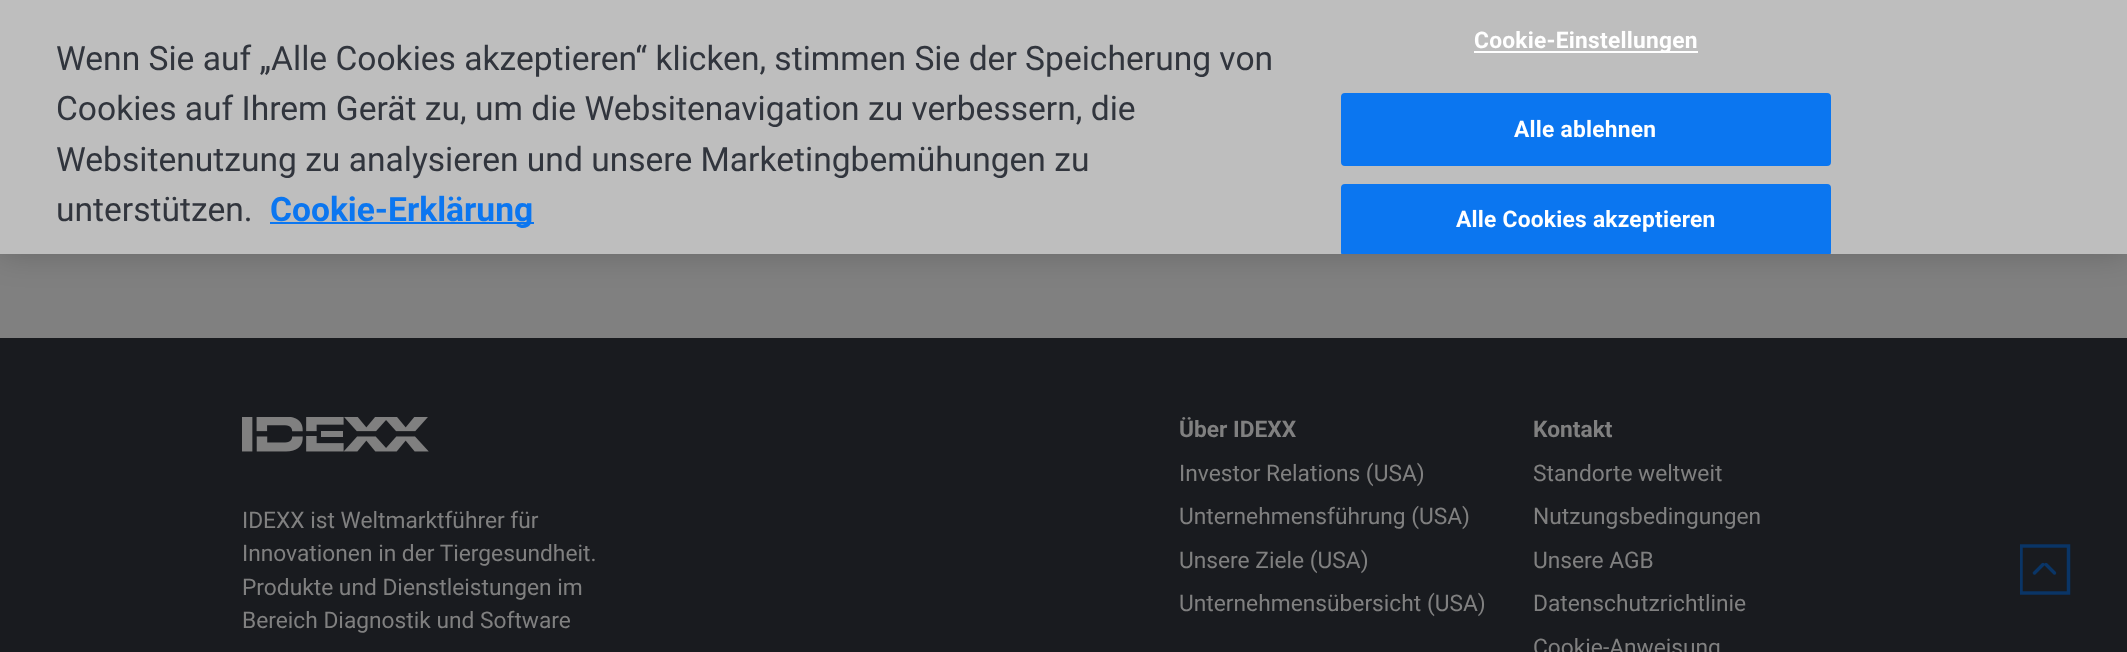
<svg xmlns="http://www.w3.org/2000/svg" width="2127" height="652">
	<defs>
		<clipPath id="clip1"><rect x="0" y="0" width="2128" height="254" /></clipPath>
		<clipPath id="clip2"><rect x="2020" y="544" width="56" height="56" /></clipPath>
	</defs>
	<rect width="100%" height="100%" fill="#808080" />
	<rect x="0" y="0" width="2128" height="254" fill="#000000" fill-opacity="0.2" filter="blur(16px)" />
	<rect x="0" y="0" width="2127" height="254" fill="#BEBEBE" />
	<g font-family="Roboto" font-size="33.6" fill="#31353D">
		<text x="56" y="70">Wenn Sie auf „Alle Cookies akzeptieren“ klicken, stimmen Sie der Speicherung von</text>
		<text x="56" y="120">Cookies auf Ihrem Gerät zu, um die Websitenavigation zu verbessern, die</text>
		<text x="56" y="171">Websitenutzung zu analysieren und unsere Marketingbemühungen zu</text>
		<text x="56" y="221">unterstützen.</text>
	</g>
	<rect x="270" y="222" width="264" height="2" fill="#0B76F0" />
	<text x="270" y="221" font-family="Roboto" font-size="33.6" font-weight="700" fill="#0B76F0">Cookie-Erklärung</text>
	<rect x="1474" y="51" width="224" height="2" fill="#FFFFFF" />
	<text x="1474" y="48" font-family="Roboto" font-size="22.75" font-weight="700" letter-spacing="0.25" fill="#FFFFFF">Cookie-Einstellungen</text>
	<rect x="1342" y="94" width="488" height="71" rx="3" fill="#0B76F0" stroke="#0B76F0" stroke-width="2" />
	<text x="1514" y="137" font-family="Roboto" font-size="22.75" font-weight="700" letter-spacing="0.25" fill="#FFFFFF">Alle ablehnen</text>
	<g clip-path="url(#clip1)">
		<rect x="1342" y="185" width="488" height="70" rx="3" fill="#0B76F0" stroke="#0B76F0" stroke-width="2" />
	</g>
	<text x="1456" y="227" font-family="Roboto" font-size="22.75" font-weight="700" letter-spacing="0.25" fill="#FFFFFF">Alle Cookies akzeptieren</text>
	<rect x="0" y="338" width="2127" height="314" fill="#191B1F" />
	<image x="242" y="417" width="187" height="35" href="assets/img1.png" />
	<g font-family="Roboto" font-size="22.75" fill="#808080">
		<text x="242" y="528">IDEXX ist Weltmarktführer für</text>
		<text x="242" y="561">Innovationen in der Tiergesundheit.</text>
		<text x="242" y="595">Produkte und Dienstleistungen im</text>
		<text x="242" y="628">Bereich Diagnostik und Software</text>
	</g>
	<text x="1179" y="437" font-family="Roboto" font-size="22.75" font-weight="700" fill="#808080">Über IDEXX</text>
	<g font-family="Roboto" font-size="22.75" fill="#808080">
		<text x="1179" y="481">Investor Relations (USA)</text>
		<text x="1179" y="524">Unternehmensführung (USA)</text>
		<text x="1179" y="568">Unsere Ziele (USA)</text>
		<text x="1179" y="611">Unternehmensübersicht (USA)</text>
	</g>
	<text x="1533" y="437" font-family="Roboto" font-size="22.75" font-weight="700" fill="#808080">Kontakt</text>
	<g font-family="Roboto" font-size="22.75" fill="#808080">
		<text x="1533" y="481">Standorte weltweit</text>
		<text x="1533" y="524">Nutzungsbedingungen</text>
		<text x="1533" y="568">Unsere AGB</text>
		<text x="1533" y="611">Datenschutzrichtlinie</text>
		<text x="1533" y="655">Cookie-Anweisung</text>
	</g>
	<g clip-path="url(#clip2)">
		<path d="M2021 546H2068.5V593H2021Z" fill="none" stroke="#0A3566" stroke-width="3.5" />
	</g>
	<path d="M2046 564.5L2054.5 573M2043 564.5L2034.5 573" fill="none" stroke="#0A3566" stroke-width="3.5" stroke-linecap="round" />
</svg>
